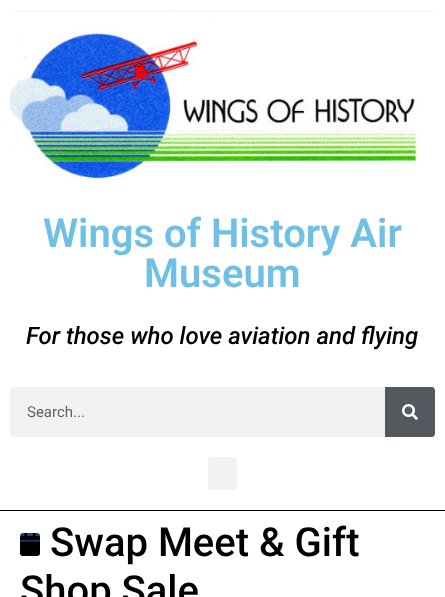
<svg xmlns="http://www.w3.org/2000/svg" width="445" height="597">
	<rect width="100%" height="100%" fill="#FFFFFF" />
	<image x="10" y="10" width="425" height="170" href="assets/img1.png" />
	<g font-family="Roboto" font-size="40" font-weight="600" fill="#6EC1E4">
		<text x="43" y="247">Wings of History Air</text>
		<text x="144" y="287">Museum</text>
	</g>
	<text x="26" y="344" font-family="Roboto" font-size="24" font-weight="500" font-style="italic" fill="#000000">For those who love aviation and flying</text>
	<rect x="10" y="387" width="425" height="50" rx="3" fill="#F1F2F3" />
	<text x="27" y="417" font-family="Roboto" font-size="15" fill="#606161">Search...</text>
	<path d="M385 387H432C433.5 387 435 388.5 435 390V434C435 435.5 433.5 437 432 437H385Z" fill="#54595F" />
	<image x="402" y="404" width="16" height="16" href="assets/img2.png" />
	<rect x="0" y="510" width="445" height="1" fill="#000000" />
	<rect x="208" y="457" width="29" height="33" rx="3" fill="#F2F2F2" />
	<rect x="20" y="533" width="20" height="23" rx="3" fill="#243F82" />
	<image x="20" y="533" width="20" height="23" href="assets/img3.png" />
	<g font-family="Roboto" font-size="40" font-weight="500" fill="#000000">
		<text x="50" y="556">Swap Meet &amp; Gift</text>
		<text x="20" y="604">Shop Sale</text>
	</g>
</svg>
